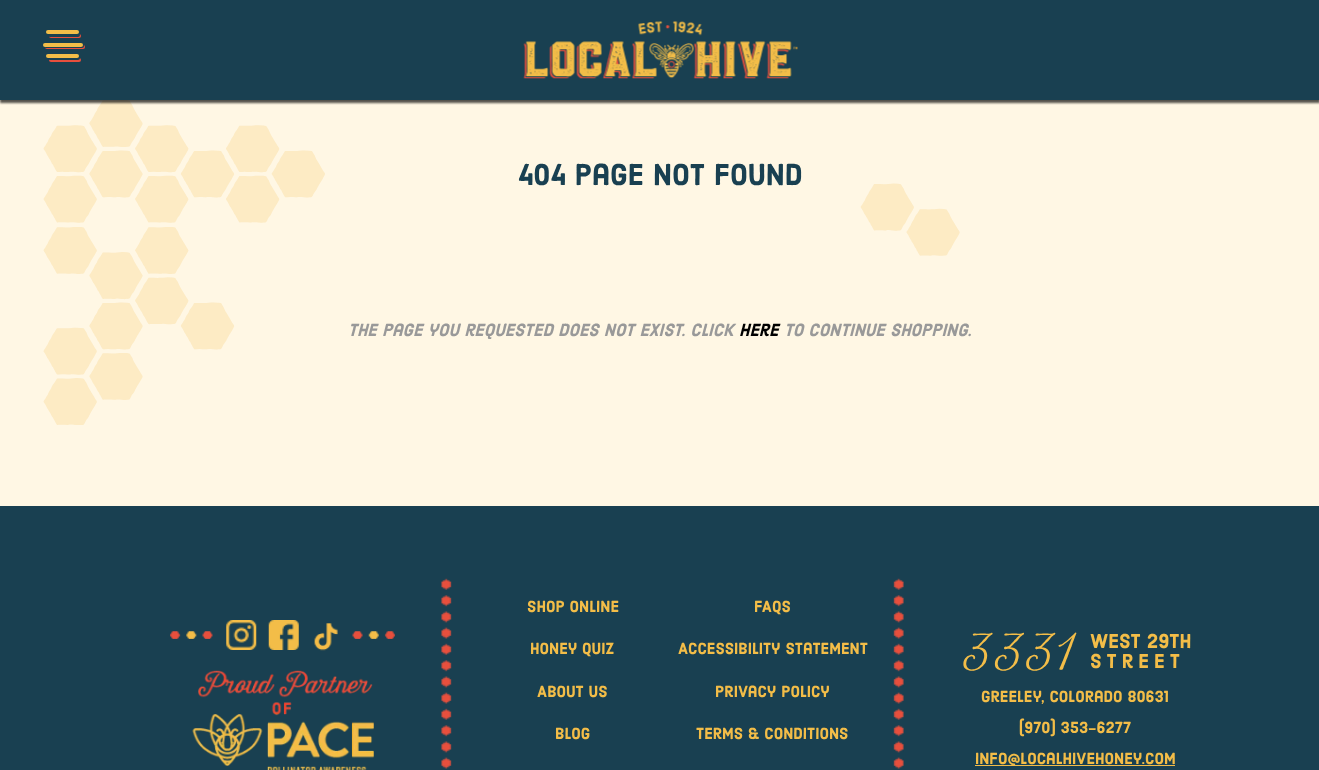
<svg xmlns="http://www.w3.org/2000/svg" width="1319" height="770">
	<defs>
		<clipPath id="clip1"><rect x="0" y="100" width="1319" height="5" /></clipPath>
	</defs>
	<rect width="100%" height="100%" fill="#194051" />
	<rect x="0" y="100" width="1319" height="406" fill="#FFF7E4" />
	<image x="43" y="100" width="917" height="325" href="assets/img2.png" />
	<g clip-path="url(#clip1)">
		<rect x="0" y="3" width="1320" height="100" fill="#000000" fill-opacity="0.67" filter="blur(1px)" />
	</g>
	<rect x="49" y="34" width="32" height="4" rx="2" fill="#E74F3D" />
	<rect x="48" y="33" width="32" height="4" rx="2" fill="#194051" />
	<rect x="46" y="30" width="33" height="4" rx="2" fill="#F3BD48" />
	<rect x="45" y="45" width="40" height="4" rx="2" fill="#E74F3D" />
	<rect x="44" y="44" width="40" height="4" rx="2" fill="#194051" />
	<rect x="43" y="43" width="40" height="4" rx="2" fill="#F3BD48" />
	<rect x="49" y="58" width="32" height="4" rx="2" fill="#E74F3D" />
	<rect x="48" y="56" width="32" height="4" rx="2" fill="#194051" />
	<rect x="46" y="54" width="33" height="4" rx="2" fill="#F3BD48" />
	<image x="523" y="21" width="275" height="58" href="assets/img1.png" />
	<text x="518" y="185" font-family="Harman" font-size="30" fill="#194051">404 Page Not Found</text>
	<text x="348" y="336" font-family="Harman" font-size="17.5" font-style="italic" fill="#999999">The page you requested does not exist. Click</text>
	<text x="739" y="336" font-family="Harman" font-size="17.5" font-style="italic" fill="#000000">here</text>
	<text x="784" y="336" font-family="Harman" font-size="17.5" font-style="italic" fill="#999999">to continue shopping.</text>
	<image x="170" y="631" width="43" height="8" href="assets/img3.png" />
	<image x="226" y="620" width="31" height="30" href="assets/img4.png" />
	<image x="268" y="620" width="31" height="30" href="assets/img5.png" />
	<image x="314" y="623" width="24" height="28" href="assets/img6.png" />
	<image x="352" y="631" width="43" height="8" href="assets/img7.png" />
	<image x="192" y="670" width="182" height="100" href="assets/img8.png" />
	<image x="441" y="578" width="11" height="191" href="assets/img9.png" />
	<g font-family="'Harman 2'" font-size="16" fill="#F3BD48">
		<text x="527" y="612">Shop Online</text>
		<text x="530" y="654">Honey Quiz</text>
		<text x="537" y="697">About Us</text>
		<text x="555" y="739">Blog</text>
		<text x="754" y="612">FAQS</text>
		<text x="678" y="654">Accessibility Statement</text>
		<text x="715" y="697">Privacy Policy</text>
		<text x="696" y="739">Terms &amp; Conditions</text>
	</g>
	<image x="893" y="578" width="11" height="191" href="assets/img10.png" />
	<text x="959" y="669" font-family="'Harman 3'" font-size="44" fill="#F3BD48">3331</text>
	<text x="1090" y="648" font-family="'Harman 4'" font-size="20" fill="#F3BD48">west 29th</text>
	<text x="1090" y="668" font-family="'Harman 4'" font-size="20" letter-spacing="5" fill="#F3BD48">street</text>
	<g font-family="'Harman 4'" font-size="16" fill="#F3BD48">
		<text x="981" y="702">Greeley, Colorado 80631</text>
		<text x="1019" y="733">(970) 353-6277</text>
	</g>
	<rect x="975" y="765" width="200" height="1" fill="#F3BD48" />
	<text x="975" y="764" font-family="'Harman 4'" font-size="16" fill="#F3BD48">info@localhivehoney.com</text>
</svg>
